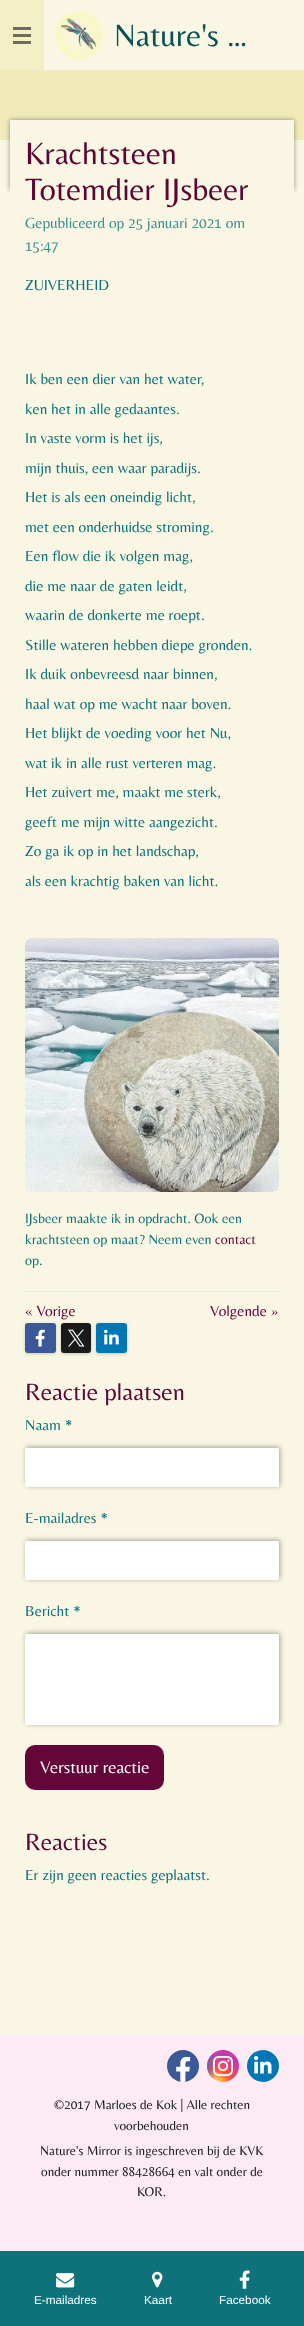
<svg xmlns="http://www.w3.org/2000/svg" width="304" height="2326">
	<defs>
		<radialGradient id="g1" gradientUnits="userSpaceOnUse" cx="0" cy="0" r="1" gradientTransform="matrix(31 0 0 29 215 2084)"><stop offset="0" stop-color="#FFDD55" /><stop offset="0.1" stop-color="#FFDD55" /><stop offset="0.5" stop-color="#FF543E" /><stop offset="1" stop-color="#C837AB" /></radialGradient>
		<radialGradient id="g2" gradientUnits="userSpaceOnUse" cx="0" cy="0" r="1" gradientTransform="matrix(14 0 0 58 202 2052)"><stop offset="0" stop-color="#3771C8" /><stop offset="0.13" stop-color="#3771C8" /><stop offset="1" stop-color="#3771C8" stop-opacity="0" /></radialGradient>
	</defs>
	<rect width="100%" height="100%" fill="#F9F7E3" />
	<rect x="0" y="0" width="44" height="70" fill="#F3EFC6" />
	<rect x="13" y="34" width="18" height="3" fill="#6E6C5D" />
	<rect x="13" y="27" width="18" height="3" fill="#6E6C5D" />
	<rect x="13" y="41" width="18" height="3" fill="#6E6C5D" />
	<image x="55" y="11" width="48" height="48" href="assets/img1.png" />
	<text x="114" y="46" font-family="Belleza" font-size="32" fill="#0A5056">Nature's …</text>
	<rect x="0" y="70" width="304" height="70" fill="#F0EBB9" />
	<rect x="10" y="120" width="284" height="70" fill="#000000" fill-opacity="0.4" filter="blur(2.5px)" />
	<rect x="10" y="120" width="284" height="75" fill="#F9F7E3" />
	<g font-family="Belleza" font-size="32" fill="#5B0734">
		<text x="25" y="164">Krachtsteen</text>
		<text x="25" y="200">Totemdier IJsbeer</text>
	</g>
	<g font-family="Belleza" font-size="15.25" fill="#3E8D8F">
		<text x="25" y="228">Gepubliceerd op 25 januari 2021 om</text>
		<text x="25" y="251">15:47</text>
	</g>
	<g font-family="Belleza" font-size="15.25" fill="#0F727A">
		<text x="25" y="290">ZUIVERHEID</text>
		<text x="25" y="384">Ik ben een dier van het water,</text>
		<text x="25" y="414">ken het in alle gedaantes.</text>
		<text x="25" y="443">In vaste vorm is het ijs,</text>
		<text x="25" y="473">mijn thuis, een waar paradijs.</text>
		<text x="25" y="502">Het is als een oneindig licht,</text>
		<text x="25" y="532">met een onderhuidse stroming.</text>
		<text x="25" y="561">Een flow die ik volgen mag,</text>
		<text x="25" y="591">die me naar de gaten leidt,</text>
		<text x="25" y="620">waarin de donkerte me roept.</text>
		<text x="25" y="650">Stille wateren hebben diepe gronden.</text>
		<text x="25" y="679">Ik duik onbevreesd naar binnen,</text>
		<text x="25" y="709">haal wat op me wacht naar boven.</text>
		<text x="25" y="738">Het blijkt de voeding voor het Nu,</text>
		<text x="25" y="768">wat ik in alle rust verteren mag.</text>
		<text x="25" y="797">Het zuivert me, maakt me sterk,</text>
		<text x="25" y="827">geeft me mijn witte aangezicht.</text>
		<text x="25" y="856">Zo ga ik op in het landschap,</text>
		<text x="25" y="886">als een krachtig baken van licht.</text>
	</g>
	<image x="25" y="938" width="254" height="254" href="assets/img2.png" />
	<g font-family="Belleza" font-size="14" fill="#0F727A">
		<text x="25" y="1223">IJsbeer maakte ik in opdracht. Ook een</text>
		<text x="25" y="1244">krachtsteen op maat? Neem even</text>
	</g>
	<text x="215" y="1244" font-family="Belleza" font-size="14" fill="#640639">contact</text>
	<text x="25" y="1265" font-family="Belleza" font-size="14" fill="#0F727A">op.</text>
	<rect x="25" y="1291" width="254" height="1" fill="#E6ECDB" />
	<g font-family="Belleza" font-size="15.25" fill="#640639">
		<text x="25" y="1316">« Vorige</text>
		<text x="210" y="1316">Volgende »</text>
	</g>
	<rect x="25" y="1324" width="31" height="30" rx="3" fill="#000000" fill-opacity="0.2" filter="blur(1.5px)" />
	<rect x="25" y="1323" width="31" height="30" rx="3" fill="#3B5998" />
	<image x="35" y="1329" width="10" height="18" href="assets/img3.png" />
	<rect x="61" y="1324" width="30" height="30" rx="3" fill="#000000" fill-opacity="0.2" filter="blur(1.5px)" />
	<rect x="61" y="1323" width="30" height="30" rx="3" fill="#1A1A1A" />
	<image x="68" y="1329" width="17" height="18" href="assets/img4.png" />
	<rect x="96" y="1324" width="31" height="30" rx="3" fill="#000000" fill-opacity="0.2" filter="blur(1.5px)" />
	<rect x="96" y="1323" width="31" height="30" rx="3" fill="#0077B5" />
	<image x="104" y="1329" width="15" height="16" href="assets/img5.png" />
	<text x="25" y="1400" font-family="Belleza" font-size="24.5" fill="#5B0734">Reactie plaatsen</text>
	<text x="25" y="1430" font-family="Belleza" font-size="15.25" fill="#0F727A">Naam *</text>
	<rect x="26" y="1447" width="254" height="39" rx="2" fill="#000000" fill-opacity="0.35" filter="blur(2.5px)" />
	<rect x="25" y="1448" width="254" height="39" rx="2" fill="#FFFFFF" />
	<text x="25" y="1523" font-family="Belleza" font-size="15.25" fill="#0F727A">E-mailadres *</text>
	<rect x="26" y="1540" width="254" height="39" rx="2" fill="#000000" fill-opacity="0.35" filter="blur(2.5px)" />
	<rect x="25" y="1541" width="254" height="39" rx="2" fill="#FFFFFF" />
	<text x="25" y="1616" font-family="Belleza" font-size="15.25" fill="#0F727A">Bericht *</text>
	<rect x="26" y="1633" width="254" height="91" rx="2" fill="#000000" fill-opacity="0.35" filter="blur(2.5px)" />
	<rect x="25" y="1634" width="254" height="91" rx="2" fill="#FFFFFF" />
	<rect x="25" y="1745" width="139" height="45" rx="10" fill="#640639" />
	<text x="40" y="1773" font-family="Belleza" font-size="17.5" fill="#FFFFFF">Verstuur reactie</text>
	<text x="25" y="1850" font-family="Belleza" font-size="24.5" fill="#5B0734">Reacties</text>
	<text x="25" y="1880" font-family="Belleza" font-size="15.25" fill="#0F727A">Er zijn geen reacties geplaatst.</text>
	<rect x="0" y="2035" width="304" height="216" fill="#FCEBF4" />
	<circle cx="183" cy="2066" r="16" fill="#3B5998" />
	<image x="176" y="2056" width="15" height="26" href="assets/img6.png" />
	<circle cx="223" cy="2066" r="16" fill="url(#g1)" />
	<circle cx="223" cy="2066" r="16" fill="url(#g2)" />
	<image x="213" y="2056" width="20" height="20" href="assets/img7.png" />
	<circle cx="263" cy="2066" r="16" fill="#0077B5" />
	<image x="254" y="2056" width="18" height="18" href="assets/img8.png" />
	<g font-family="Belleza" font-size="13.25" fill="#202020">
		<text x="54" y="2109">©2017 Marloes de Kok | Alle rechten</text>
		<text x="114" y="2130">voorbehouden</text>
		<text x="40" y="2155">Nature's Mirror is ingeschreven bij de KVK</text>
		<text x="41" y="2176">onder nummer 88428664 en valt onder de</text>
		<text x="137" y="2196">KOR.</text>
	</g>
	<rect x="0" y="2251" width="304" height="75" fill="#0F727A" />
	<image x="56" y="2273" width="19" height="15" href="assets/img9.png" />
	<text x="34" y="2304" font-family="Liberation Sans" font-size="11.75" fill="#FFFFFF">E-mailadres</text>
	<image x="152" y="2271" width="11" height="17" href="assets/img10.png" />
	<text x="144" y="2304" font-family="Liberation Sans" font-size="11.75" fill="#FFFFFF">Kaart</text>
	<image x="239" y="2270" width="11" height="19" href="assets/img11.png" />
	<text x="219" y="2304" font-family="Liberation Sans" font-size="11.75" fill="#FFFFFF">Facebook</text>
</svg>
